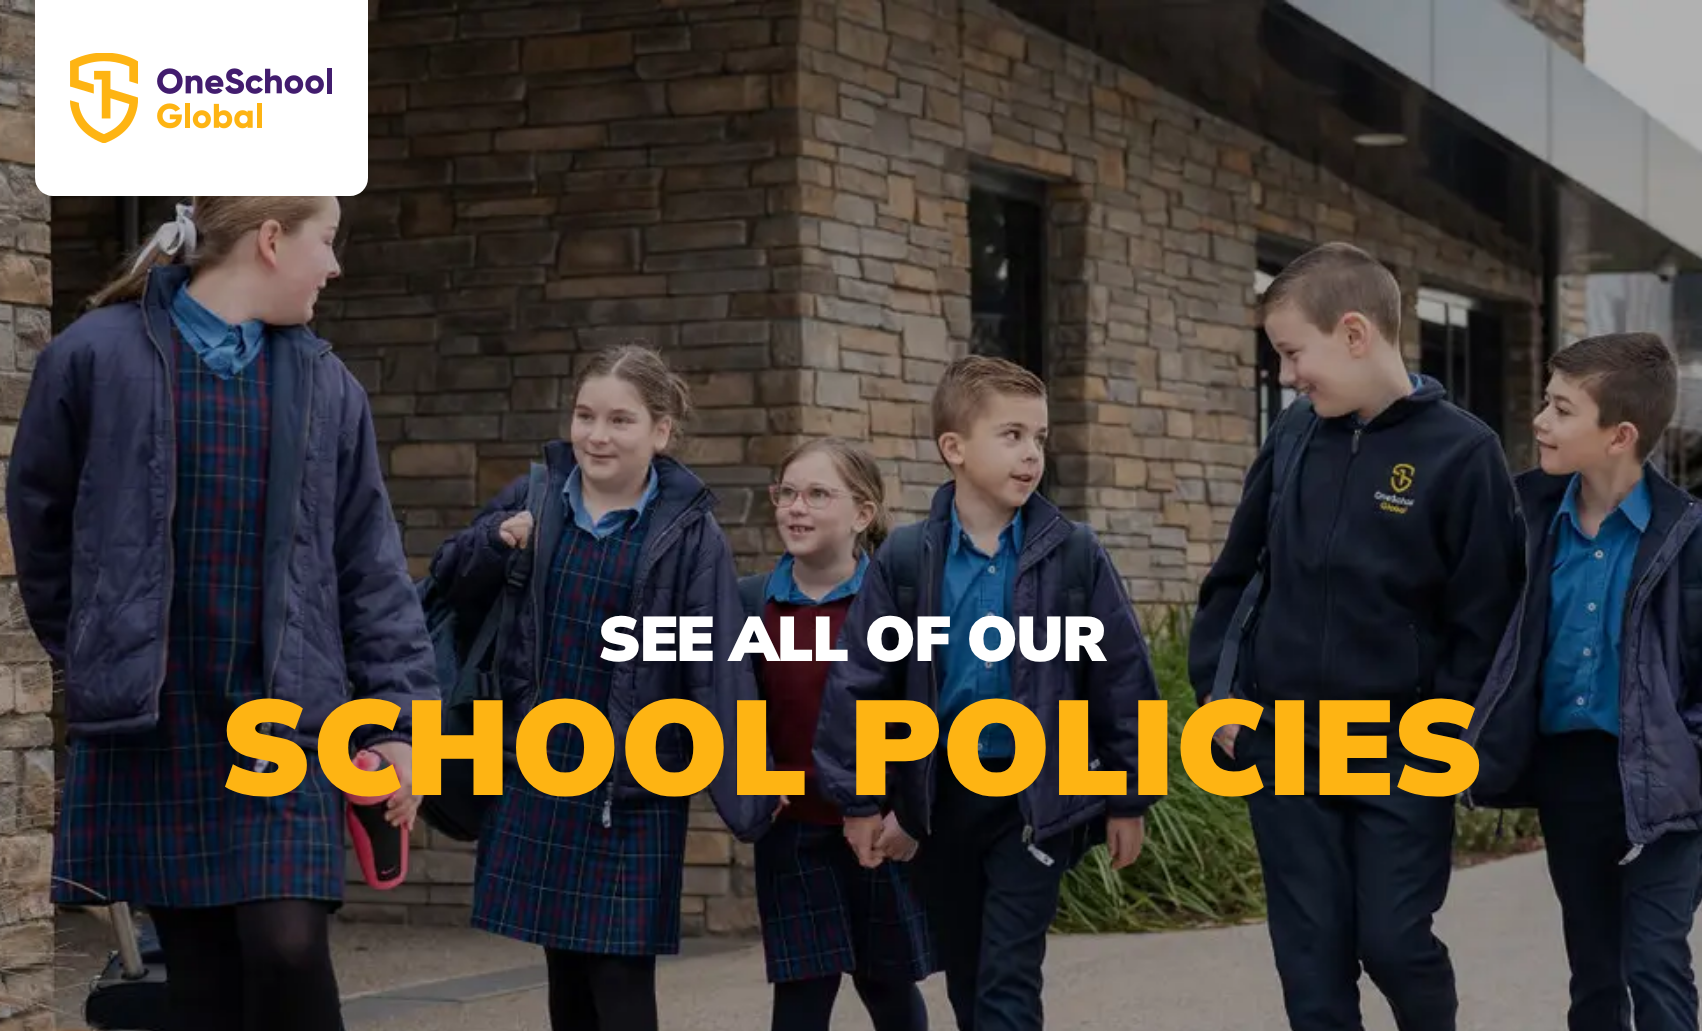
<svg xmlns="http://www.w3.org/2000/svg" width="1702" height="1031">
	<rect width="100%" height="100%" fill="#FFFFFF" />
	<image x="0" y="0" width="1702" height="1031" href="assets/img2.png" />
	<path d="M35 0H368V178C368 188 360 196 350 196H53C43 196 35 188 35 178Z" fill="#FFFFFF" />
	<image x="70" y="53" width="262" height="90" href="assets/img1.png" />
	<text x="598" y="661" font-family="Mulish" font-size="63" font-weight="900" letter-spacing="-1.75" fill="#FFFFFF">SEE ALL OF OUR</text>
	<text x="220" y="795" font-family="Mulish" font-size="134.5" font-weight="900" fill="#FEB413">SCHOOL POLICIES</text>
</svg>
